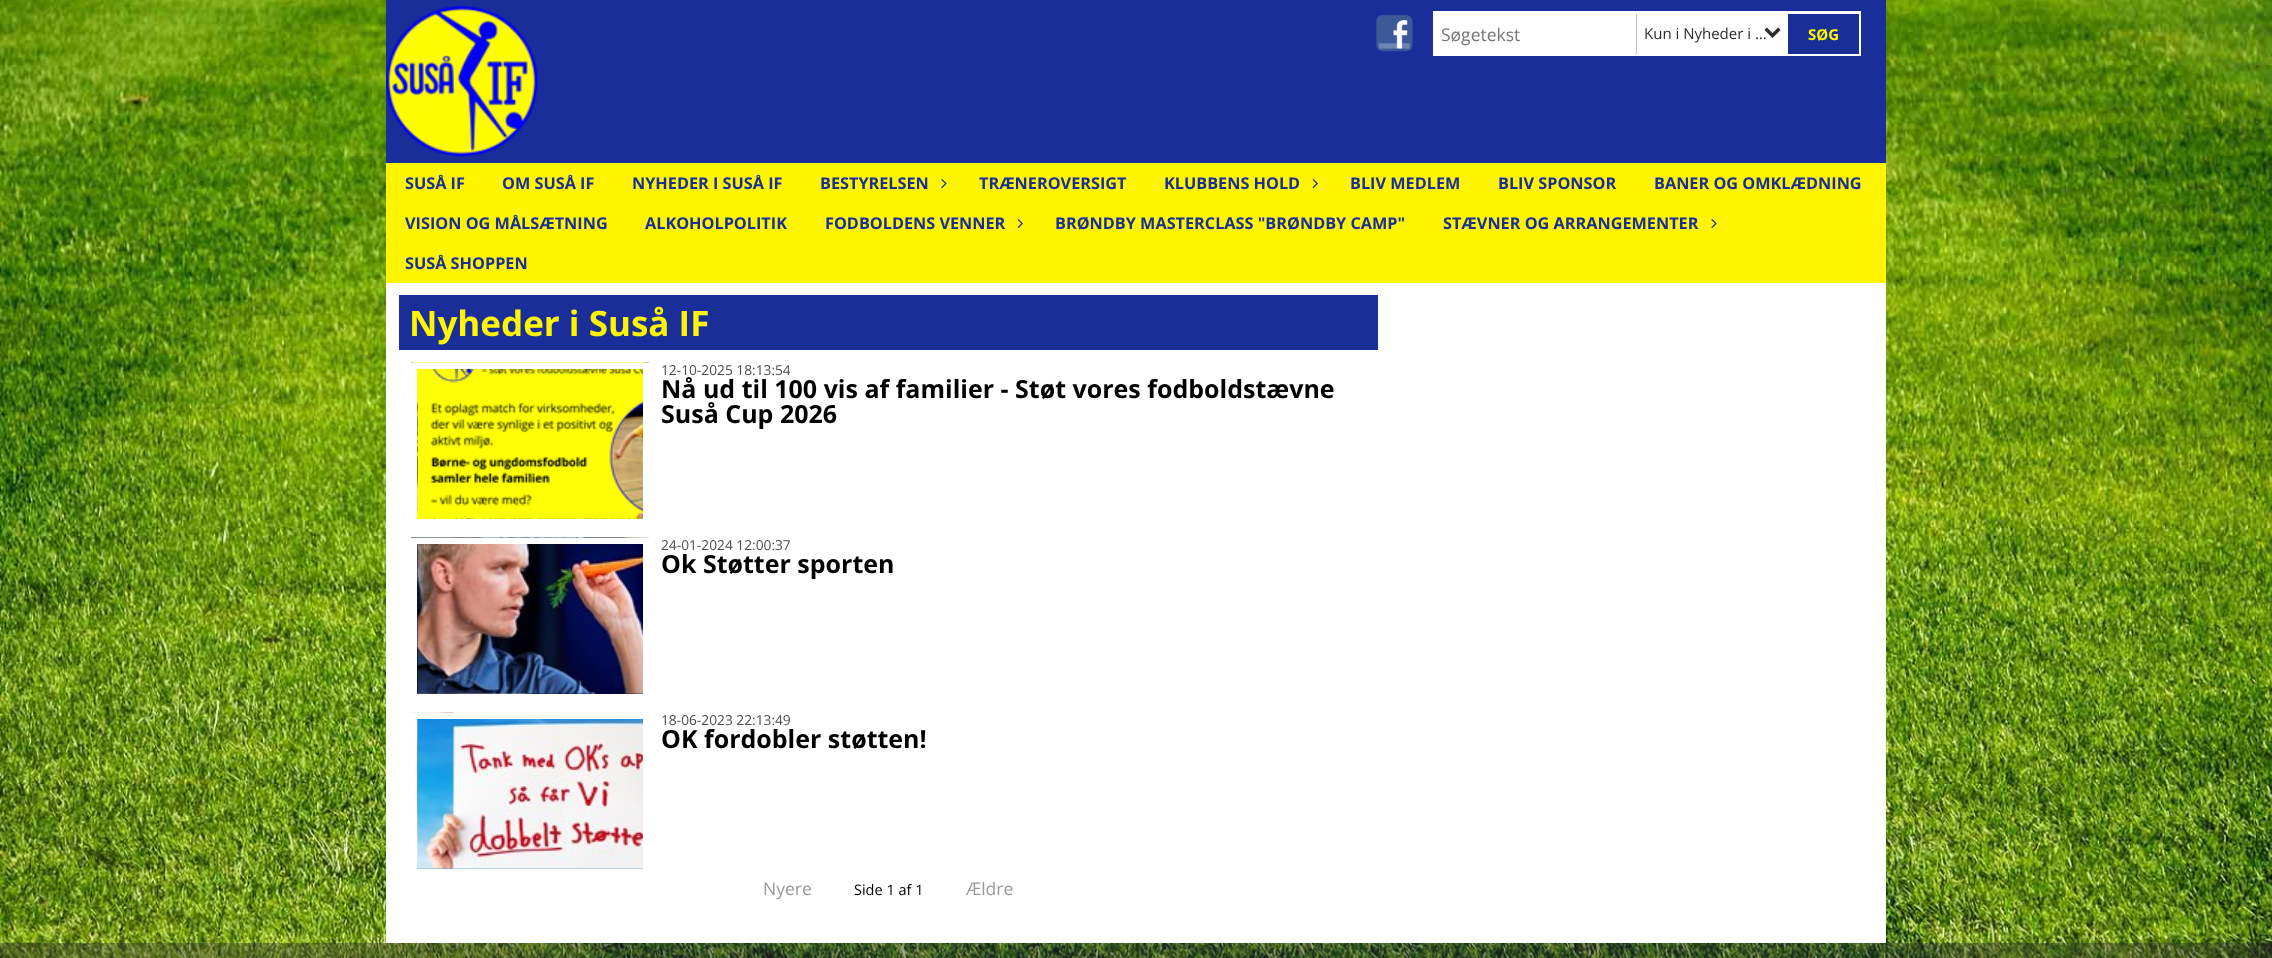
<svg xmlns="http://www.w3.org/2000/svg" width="2272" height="958">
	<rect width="100%" height="100%" fill="#FFFFFF" />
	<image x="0" y="0" width="2272" height="958" href="assets/img1.png" />
	<rect x="386" y="0" width="1500" height="163" fill="#192E99" />
	<image x="386" y="6" width="152" height="151" href="assets/img2.png" />
	<image x="1376" y="15" width="37" height="37" href="assets/img3.png" />
	<rect x="1434.5" y="12.5" width="425" height="42" fill="none" stroke="#FFFFFF" stroke-width="3" />
	<rect x="1436" y="14" width="200" height="39" fill="#FFFFFF" />
	<text x="1441" y="41" font-family="Open Sans" font-size="17.5" fill="#757575">Søgetekst</text>
	<rect x="1637" y="14" width="151" height="39" fill="#FFFFFF" />
	<rect x="1636" y="14" width="1" height="40" fill="#C2C2C2" />
	<text x="1644" y="39" font-family="Open Sans" font-size="15" fill="#2C2C2C">Kun i Nyheder i …</text>
	<image x="1764" y="27" width="17" height="11" href="assets/img4.png" />
	<rect x="1788" y="14" width="71" height="40" fill="#192E99" />
	<text x="1808" y="40" font-family="Open Sans" font-size="15" font-weight="700" fill="#FFF500">SØG</text>
	<rect x="386" y="163" width="1500" height="120" fill="#FFF500" />
	<g font-family="Open Sans" font-size="16.25" font-weight="700" fill="#192E99">
		<text x="405" y="189">SUSÅ IF</text>
		<text x="502" y="189">OM SUSÅ IF</text>
		<text x="632" y="189">NYHEDER I SUSÅ IF</text>
		<text x="820" y="189">BESTYRELSEN</text>
	</g>
	<image x="941" y="179" width="6" height="9" href="assets/img5.png" />
	<g font-family="Open Sans" font-size="16.25" font-weight="700" fill="#192E99">
		<text x="979" y="189">TRÆNEROVERSIGT</text>
		<text x="1164" y="189">KLUBBENS HOLD</text>
	</g>
	<image x="1312" y="179" width="6" height="9" href="assets/img6.png" />
	<g font-family="Open Sans" font-size="16.25" font-weight="700" fill="#192E99">
		<text x="1350" y="189">BLIV MEDLEM</text>
		<text x="1498" y="189">BLIV SPONSOR</text>
		<text x="1654" y="189">BANER OG OMKLÆDNING</text>
		<text x="405" y="229">VISION OG MÅLSÆTNING</text>
		<text x="645" y="229">ALKOHOLPOLITIK</text>
		<text x="825" y="229">FODBOLDENS VENNER</text>
	</g>
	<image x="1017" y="219" width="6" height="9" href="assets/img6.png" />
	<g font-family="Open Sans" font-size="16.25" font-weight="700" fill="#192E99">
		<text x="1055" y="229">BRØNDBY MASTERCLASS "BRØNDBY CAMP"</text>
		<text x="1443" y="229">STÆVNER OG ARRANGEMENTER</text>
	</g>
	<image x="1711" y="219" width="6" height="9" href="assets/img5.png" />
	<text x="405" y="269" font-family="Open Sans" font-size="16.25" font-weight="700" fill="#192E99">SUSÅ SHOPPEN</text>
	<rect x="386" y="283" width="1500" height="660" fill="#FFFFFF" />
	<rect x="399" y="295" width="979" height="55" fill="#192E99" />
	<text x="409" y="336" font-family="Open Sans" font-size="35" font-weight="700" fill="#FFF500">Nyheder i Suså IF</text>
	<image x="411" y="362" width="238" height="157" href="assets/img7.png" />
	<rect x="414" y="366" width="232" height="156" fill="none" stroke="#FFFFFF" stroke-width="6" />
	<text x="661" y="375" font-family="Open Sans" font-size="13.75" fill="#4D4D4D">12-10-2025 18:13:54</text>
	<g font-family="Open Sans" font-size="25" font-weight="700" fill="#000000">
		<text x="661" y="398">Nå ud til 100 vis af familier - Støt vores fodboldstævne</text>
		<text x="661" y="423">Suså Cup 2026</text>
	</g>
	<image x="411" y="537" width="238" height="157" href="assets/img8.png" />
	<rect x="414" y="541" width="232" height="156" fill="none" stroke="#FFFFFF" stroke-width="6" />
	<text x="661" y="550" font-family="Open Sans" font-size="13.75" fill="#4D4D4D">24-01-2024 12:00:37</text>
	<text x="661" y="573" font-family="Open Sans" font-size="25" font-weight="700" fill="#000000">Ok Støtter sporten</text>
	<image x="411" y="712" width="238" height="157" href="assets/img9.png" />
	<rect x="414" y="716" width="232" height="156" fill="none" stroke="#FFFFFF" stroke-width="6" />
	<text x="661" y="725" font-family="Open Sans" font-size="13.75" fill="#4D4D4D">18-06-2023 22:13:49</text>
	<text x="661" y="748" font-family="Open Sans" font-size="25" font-weight="700" fill="#000000">OK fordobler støtten!</text>
	<text x="763" y="895" font-family="Open Sans" font-size="17.5" fill="#999999">Nyere</text>
	<text x="854" y="895" font-family="Open Sans" font-size="14.5" fill="#000000">Side 1 af 1</text>
	<text x="966" y="895" font-family="Open Sans" font-size="17.5" fill="#999999">Ældre</text>
	<rect x="0" y="943" width="2272" height="15" fill="#333333" fill-opacity="0.4" />
</svg>
